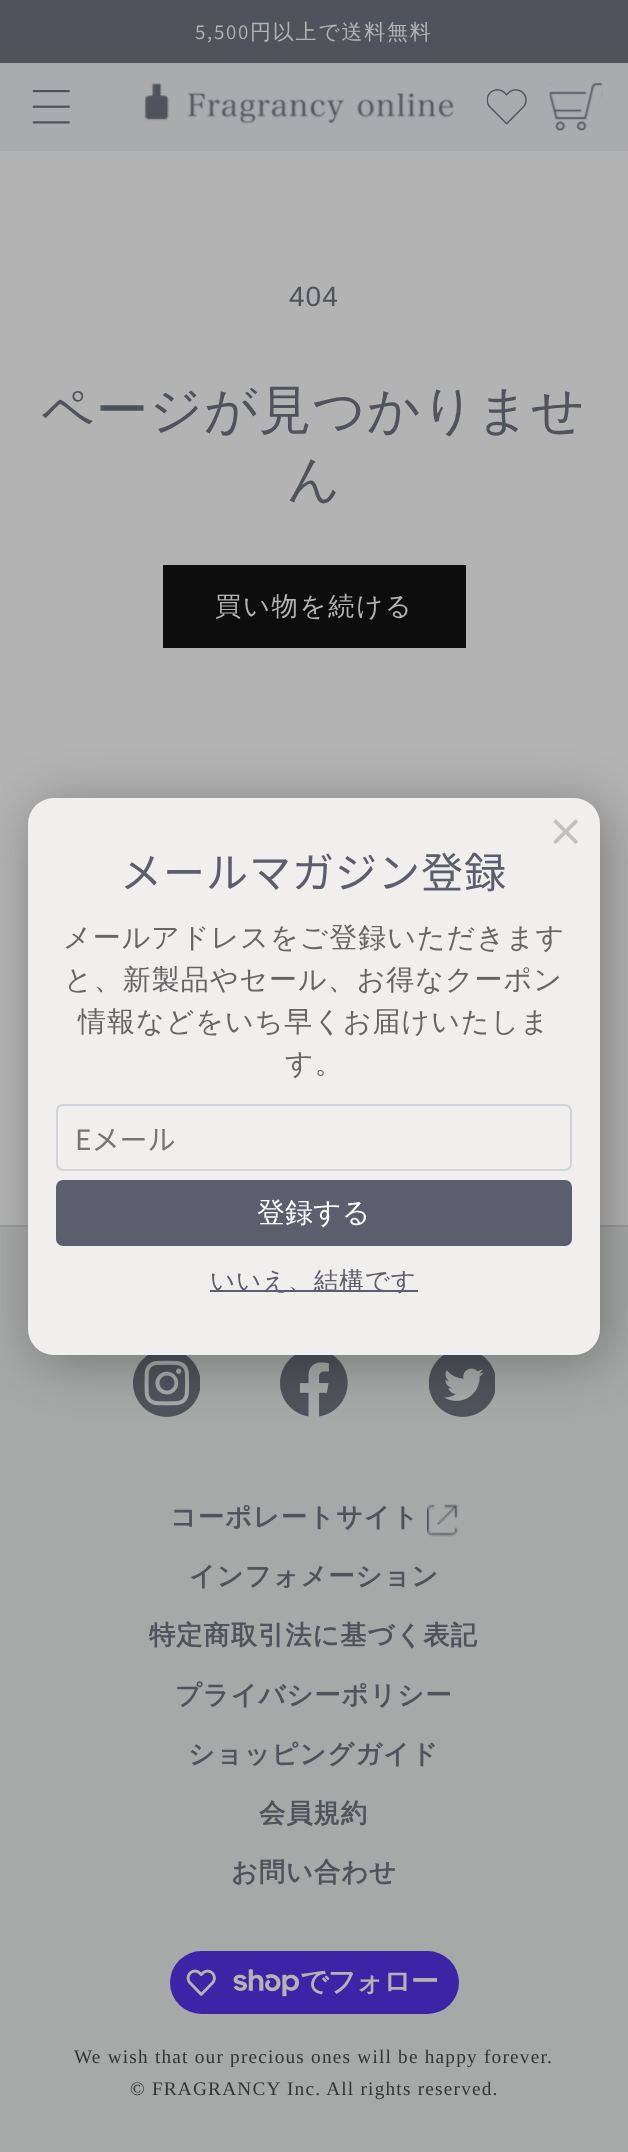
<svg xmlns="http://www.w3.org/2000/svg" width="628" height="2152">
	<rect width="100%" height="100%" fill="#B3B3B3" />
	<rect x="0" y="0" width="628" height="63" fill="#4F535B" />
	<text x="195" y="39" font-family="Assistant" font-size="21" letter-spacing="1.75" fill="#B3B3B3">5,500</text>
	<text x="250" y="39" font-family="WenQuanYi Zen Hei" font-size="21" font-weight="500" letter-spacing="1.75" fill="#B3B3B3">円以上で送料無料</text>
	<rect x="0" y="63" width="628" height="88" fill="#A9ABAC" />
	<image x="32" y="90" width="38" height="34" href="assets/img1.png" />
	<image x="144" y="83" width="310" height="41" href="assets/img2.png" />
	<image x="487" y="89" width="40" height="36" href="assets/img3.png" />
	<image x="549" y="83" width="54" height="48" href="assets/img4.png" />
	<text x="289" y="306" font-family="Liberation Sans" font-size="28" letter-spacing="1" fill="#4F535B">404</text>
	<g font-family="WenQuanYi Zen Hei" font-size="52.5" font-weight="500" letter-spacing="1" fill="#4F535B">
		<text x="41" y="428">ページが見つかりませ</text>
		<text x="287" y="497">ん</text>
	</g>
	<rect x="163" y="565" width="303" height="83" fill="#0D0D0D" />
	<text x="215" y="615" font-family="WenQuanYi Zen Hei" font-size="26.25" font-weight="500" letter-spacing="1.75" fill="#B3B3B3">買い物を続ける</text>
	<rect x="0" y="1227" width="628" height="925" fill="#A7A9A9" />
	<rect x="0" y="1225" width="628" height="2" fill="#9B9C9D" />
	<image x="133" y="1355" width="67" height="62" href="assets/img6.png" />
	<image x="280" y="1355" width="68" height="62" href="assets/img7.png" />
	<image x="429" y="1355" width="66" height="62" href="assets/img8.png" />
	<rect x="35" y="805" width="572" height="557" rx="26" fill="#000000" fill-opacity="0.3" filter="blur(26px)" />
	<rect x="28" y="798" width="572" height="557" rx="26" fill="#F1EEEE" />
	<image x="553" y="819" width="25" height="25" href="assets/img5.png" />
	<text x="120" y="888" font-family="Noto Sans JP" font-size="42" letter-spacing="1" fill="#5B5E6C">メールマガジン登録</text>
	<g font-family="WenQuanYi Zen Hei" font-size="28" font-weight="500" letter-spacing="1" fill="#666666">
		<text x="63" y="947">メールアドレスをご登録いただきます</text>
		<text x="64" y="989">と、新製品やセール、お得なクーポン</text>
		<text x="78" y="1031">情報などをいち早くお届けいたしま</text>
		<text x="285" y="1073">す。</text>
	</g>
	<rect x="57" y="1105" width="514" height="65" rx="6" fill="none" stroke="#CED4DA" stroke-width="2" />
	<text x="75" y="1150" font-family="Noto Sans JP" font-size="28" fill="#757575">Eメール</text>
	<rect x="57" y="1181" width="514" height="64" rx="6" fill="#5B5E6C" stroke="#5B5E6C" stroke-width="2" />
	<text x="257" y="1222" font-family="WenQuanYi Zen Hei" font-size="28" font-weight="500" fill="#FFFFFF">登録する</text>
	<rect x="210" y="1290" width="208" height="2" fill="#5B5E6C" />
	<text x="210" y="1289" font-family="WenQuanYi Zen Hei" font-size="24.5" font-weight="500" letter-spacing="1" fill="#5B5E6C">いいえ、結構です</text>
	<text x="170" y="1526" font-family="WenQuanYi Zen Hei" font-size="26.25" font-weight="700" letter-spacing="1" fill="#4F535B">コーポレートサイト</text>
	<image x="427" y="1504" width="32" height="33" href="assets/img9.png" />
	<g font-family="WenQuanYi Zen Hei" font-size="26.25" font-weight="700" letter-spacing="1" fill="#4F535B">
		<text x="189" y="1585">インフォメーション</text>
		<text x="149" y="1644">特定商取引法に基づく表記</text>
		<text x="175" y="1704">プライバシーポリシー</text>
		<text x="188" y="1763">ショッピングガイド</text>
		<text x="259" y="1822">会員規約</text>
		<text x="231" y="1881">お問い合わせ</text>
	</g>
	<rect x="170" y="1951" width="289" height="63" rx="31.5" fill="#3B24A5" />
	<image x="186" y="1969" width="30" height="27" href="assets/img10.png" />
	<image x="233" y="1969" width="66" height="28" href="assets/img11.png" />
	<text x="300" y="1991" font-family="WenQuanYi Zen Hei" font-size="28" font-weight="700" letter-spacing="-1" fill="#B3B3B3">でフォロー</text>
	<g font-family="Liberation Serif" font-size="19.25" letter-spacing="1.22" fill="#333434">
		<text x="74" y="2063">We wish that our precious ones will be happy forever.</text>
		<text x="130" y="2095">© FRAGRANCY Inc. All rights reserved.</text>
	</g>
</svg>
